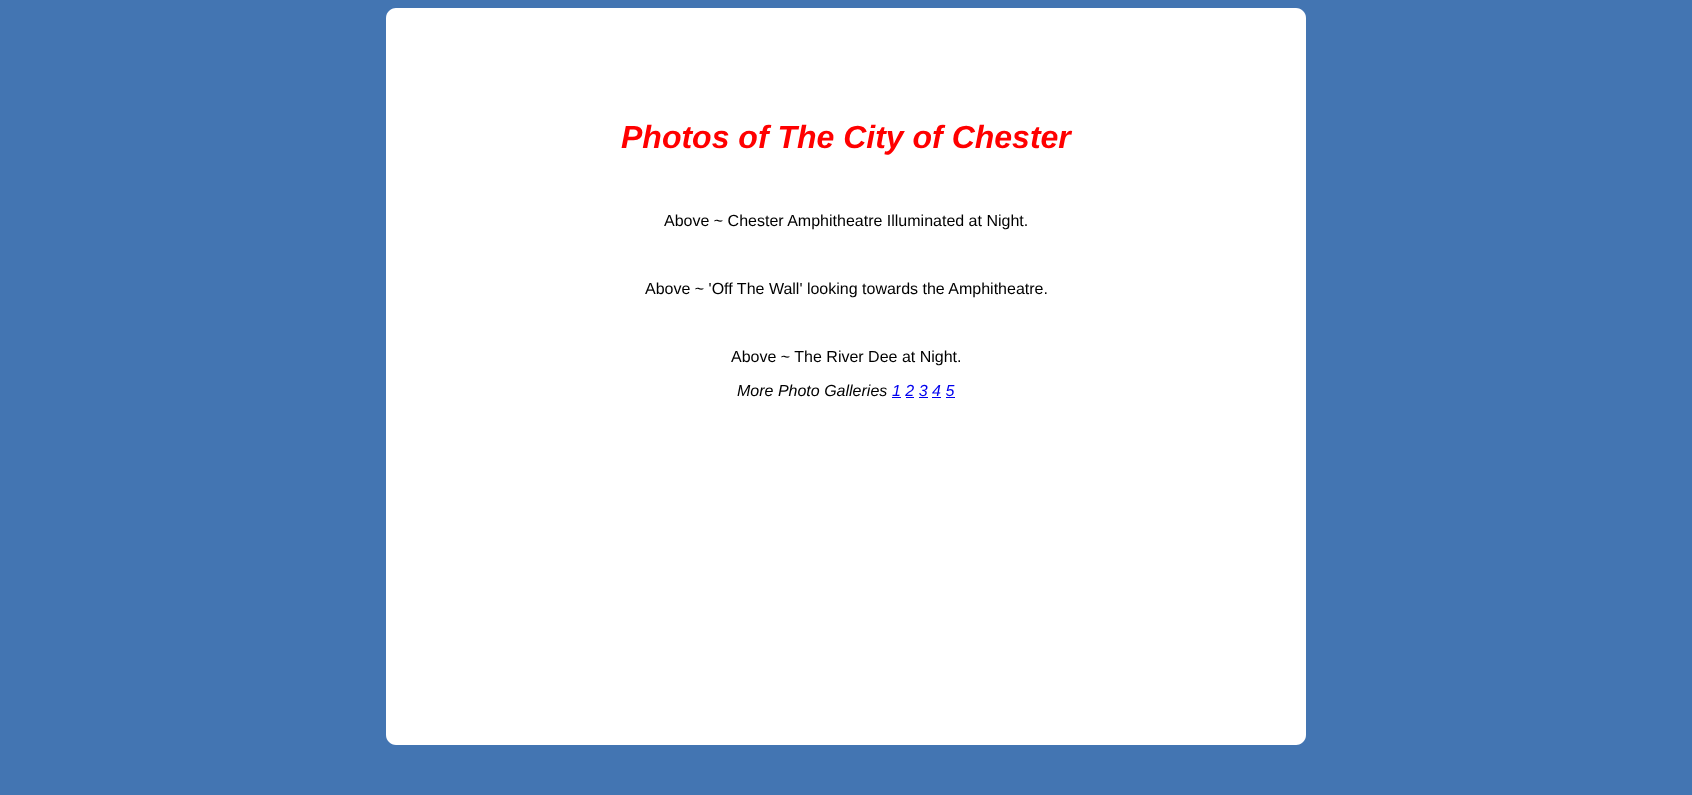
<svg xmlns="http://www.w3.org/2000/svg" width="1692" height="795">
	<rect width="100%" height="100%" fill="#4375B2" />
	<path d="M396 8H1296C1301.5 8 1306 12.5 1306 18V68H386V18C386 12.5 390.5 8 396 8Z" fill="#FFFFFF" />
	<rect x="386" y="68" width="920" height="20" fill="#FFFFFF" />
	<path d="M386 88H1306V735C1306 740.5 1301.5 745 1296 745H396C390.5 745 386 740.5 386 735Z" fill="#FFFFFF" />
	<text x="621" y="148" font-family="Liberation Sans" font-size="32" font-weight="700" font-style="italic" fill="#FF0000">Photos of The City of Chester</text>
	<g font-family="Liberation Sans" font-size="16" fill="#000000">
		<text x="664" y="226">Above ~ Chester Amphitheatre Illuminated at Night.</text>
		<text x="645" y="294">Above ~ 'Off The Wall' looking towards the Amphitheatre.</text>
		<text x="731" y="362">Above ~ The River Dee at Night.</text>
	</g>
	<text x="737" y="396" font-family="Liberation Sans" font-size="16" font-style="italic" fill="#000000">More Photo Galleries</text>
	<text x="892" y="396" font-family="Liberation Sans" font-size="16" font-style="italic" fill="#0000EE">1 2 3 4 5</text>
	<rect x="892" y="397" width="9" height="1" fill="#0000EE" />
	<rect x="906" y="397" width="8" height="1" fill="#0000EE" />
	<rect x="919" y="397" width="9" height="1" fill="#0000EE" />
	<rect x="932" y="397" width="9" height="1" fill="#0000EE" />
	<rect x="946" y="397" width="9" height="1" fill="#0000EE" />
</svg>
